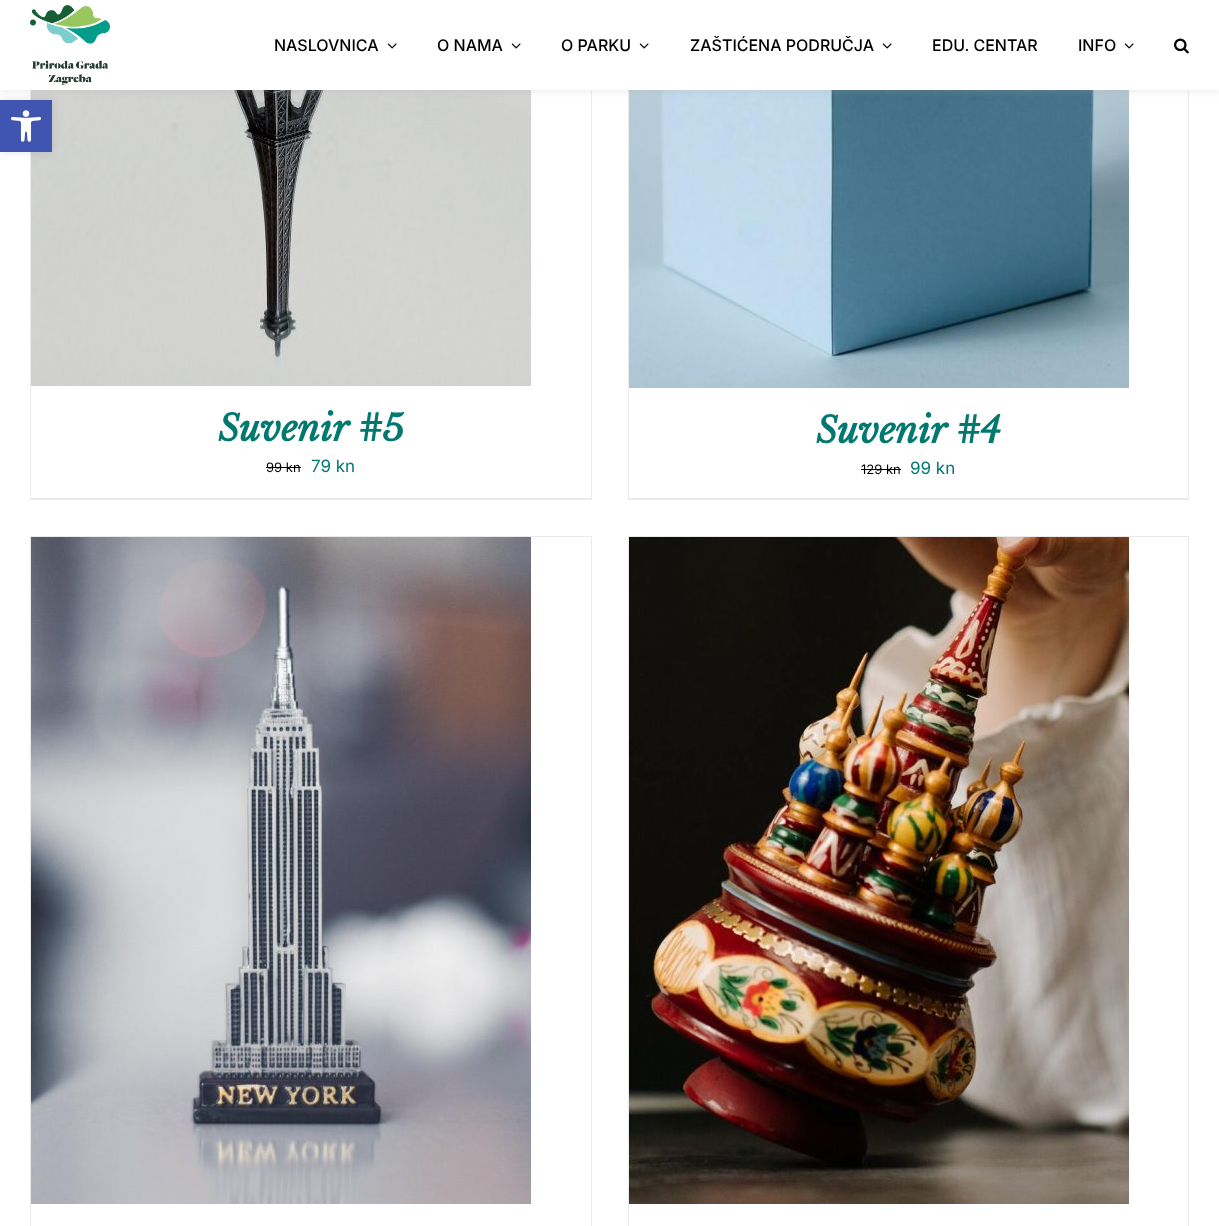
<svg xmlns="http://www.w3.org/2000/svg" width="1219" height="1226">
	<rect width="100%" height="100%" fill="#FFFFFF" />
	<rect x="591" y="90" width="1" height="410" fill="#EBEAEA" />
	<rect x="30" y="498" width="562" height="2" fill="#EBEAEA" />
	<rect x="30" y="90" width="1" height="410" fill="#EBEAEA" />
	<image x="31" y="90" width="500" height="296" href="assets/img5.png" />
	<rect x="1188" y="90" width="1" height="410" fill="#EBEAEA" />
	<rect x="628" y="498" width="561" height="2" fill="#EBEAEA" />
	<rect x="628" y="90" width="1" height="410" fill="#EBEAEA" />
	<image x="629" y="90" width="500" height="298" href="assets/img6.png" />
	<rect x="1" y="0" width="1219" height="90" fill="#A8A8A8" fill-opacity="0.3" filter="blur(4px)" />
	<rect x="0" y="0" width="1219" height="90" fill="#FFFFFF" />
	<image x="30" y="5" width="80" height="80" href="assets/img2.png" />
	<rect x="0" y="100" width="52" height="52" fill="#000000" fill-opacity="0.1" filter="blur(5px)" />
	<rect x="0" y="100" width="52" height="52" fill="#4054B2" />
	<image x="11" y="110" width="30" height="32" href="assets/img1.png" />
	<text x="274" y="51" font-family="Inter" font-size="16" font-weight="500" fill="#000000">NASLOVNICA</text>
	<image x="387" y="43" width="10" height="6" href="assets/img3.png" />
	<text x="437" y="51" font-family="Inter" font-size="16" font-weight="500" fill="#000000">O NAMA</text>
	<image x="511" y="43" width="10" height="6" href="assets/img3.png" />
	<text x="561" y="51" font-family="Inter" font-size="16" font-weight="500" fill="#000000">O PARKU</text>
	<image x="639" y="43" width="10" height="6" href="assets/img3.png" />
	<text x="690" y="51" font-family="Inter" font-size="16" font-weight="500" fill="#000000">ZAŠTIĆENA PODRUČJA</text>
	<image x="882" y="43" width="10" height="6" href="assets/img3.png" />
	<g font-family="Inter" font-size="16" font-weight="500" fill="#000000">
		<text x="932" y="51">EDU. CENTAR</text>
		<text x="1078" y="51">INFO</text>
	</g>
	<image x="1124" y="43" width="10" height="6" href="assets/img3.png" />
	<image x="1174" y="38" width="15" height="16" href="assets/img4.png" />
	<text x="218" y="441" font-family="Libre Baskerville" font-size="36" font-weight="700" font-style="italic" fill="#01796F">Suvenir #5</text>
	<text x="266" y="472" font-family="Inter" font-size="13" fill="#000000">99 kn</text>
	<rect x="266" y="467" width="35" height="1" fill="#000000" />
	<text x="311" y="472" font-family="Inter" font-size="17" fill="#01796F">79 kn</text>
	<text x="816" y="443" font-family="Libre Baskerville" font-size="36" font-weight="700" font-style="italic" fill="#01796F">Suvenir #4</text>
	<text x="861" y="474" font-family="Inter" font-size="13" fill="#000000">129 kn</text>
	<rect x="861" y="469" width="40" height="1" fill="#000000" />
	<text x="910" y="474" font-family="Inter" font-size="17" fill="#01796F">99 kn</text>
	<rect x="30" y="536" width="562" height="1" fill="#EBEAEA" />
	<rect x="591" y="536" width="1" height="690" fill="#EBEAEA" />
	<rect x="30" y="536" width="1" height="690" fill="#EBEAEA" />
	<image x="31" y="537" width="500" height="667" href="assets/img7.png" />
	<rect x="628" y="536" width="561" height="1" fill="#EBEAEA" />
	<rect x="1188" y="536" width="1" height="690" fill="#EBEAEA" />
	<rect x="628" y="536" width="1" height="690" fill="#EBEAEA" />
	<image x="629" y="537" width="500" height="667" href="assets/img8.png" />
</svg>
